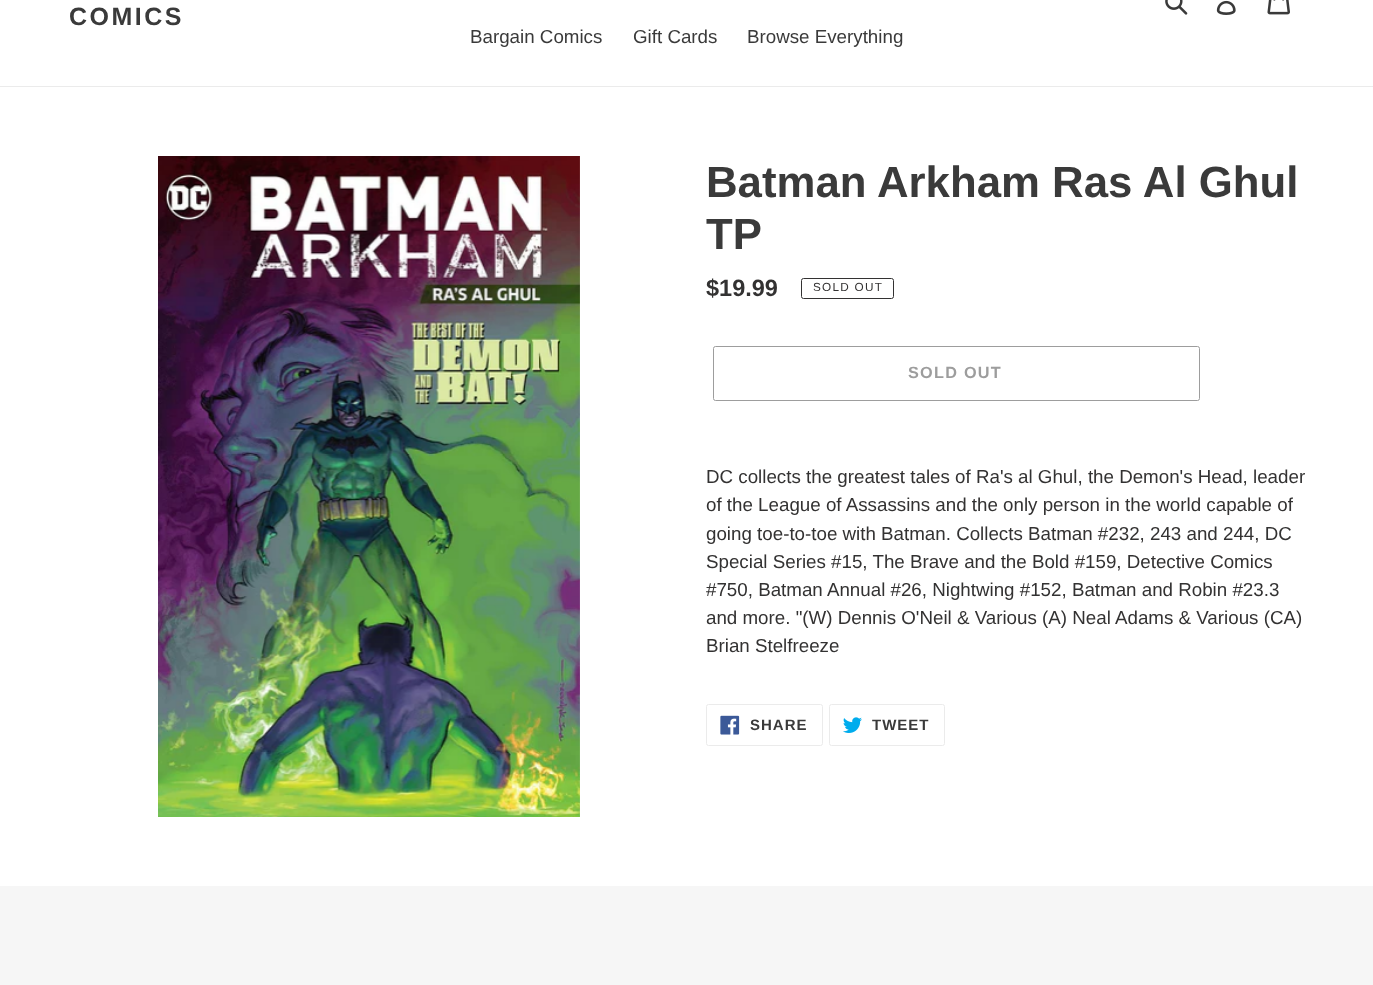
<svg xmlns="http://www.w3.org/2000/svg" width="1373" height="985">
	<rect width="100%" height="100%" fill="#FFFFFF" />
	<rect x="0" y="86" width="1373" height="1" fill="#EBEBEB" />
	<text x="69" y="25" font-family="Liberation Sans" font-size="25" font-weight="700" letter-spacing="2.5" fill="#3A3A3A">COMICS</text>
	<image x="1165" y="0" width="23" height="15" href="assets/img1.png" />
	<image x="1216" y="0" width="20" height="15" href="assets/img2.png" />
	<image x="1267" y="0" width="23" height="15" href="assets/img3.png" />
	<g font-family="Liberation Sans" font-size="18.75" fill="#3A3A3A">
		<text x="470" y="43">Bargain Comics</text>
		<text x="633" y="43">Gift Cards</text>
		<text x="747" y="43">Browse Everything</text>
	</g>
	<image x="158" y="156" width="422" height="661" href="assets/img4.png" />
	<g font-family="Liberation Sans" font-size="43.75" font-weight="700" fill="#3A3A3A">
		<text x="706" y="197">Batman Arkham Ras Al Ghul</text>
		<text x="706" y="249">TP</text>
	</g>
	<text x="706" y="296" font-family="Liberation Sans" font-size="23.5" font-weight="700" fill="#333232">$19.99</text>
	<rect x="801.5" y="278.5" width="92" height="20" rx="2" fill="none" stroke="#333232" />
	<text x="813" y="291" font-family="Liberation Sans" font-size="11.75" letter-spacing="1.25" fill="#333232">SOLD OUT</text>
	<rect x="713.5" y="346.5" width="486" height="54" rx="2" fill="none" stroke="#9D9D9D" />
	<text x="908" y="378" font-family="Liberation Sans" font-size="16.25" font-weight="700" letter-spacing="1.25" fill="#9D9D9D">SOLD OUT</text>
	<g font-family="Liberation Sans" font-size="18.75" fill="#333232">
		<text x="706" y="483">DC collects the greatest tales of Ra's al Ghul, the Demon's Head, leader</text>
		<text x="706" y="511">of the League of Assassins and the only person in the world capable of</text>
		<text x="706" y="540">going toe-to-toe with Batman. Collects Batman #232, 243 and 244, DC</text>
		<text x="706" y="568">Special Series #15, The Brave and the Bold #159, Detective Comics</text>
		<text x="706" y="596">#750, Batman Annual #26, Nightwing #152, Batman and Robin #23.3</text>
		<text x="706" y="624">and more. "(W) Dennis O'Neil &amp; Various (A) Neal Adams &amp; Various (CA)</text>
		<text x="706" y="652">Brian Stelfreeze</text>
	</g>
	<rect x="706.5" y="704.5" width="116" height="41" rx="2" fill="none" stroke="#EBEBEB" />
	<image x="720" y="715" width="20" height="20" href="assets/img5.png" />
	<text x="750" y="730" font-family="Liberation Sans" font-size="15" font-weight="700" letter-spacing="1" fill="#3A3A3A">SHARE</text>
	<rect x="829.5" y="704.5" width="115" height="41" rx="2" fill="none" stroke="#EBEBEB" />
	<image x="843" y="717" width="19" height="16" href="assets/img6.png" />
	<text x="872" y="730" font-family="Liberation Sans" font-size="15" font-weight="700" letter-spacing="1" fill="#3A3A3A">TWEET</text>
	<rect x="0" y="886" width="1373" height="99" fill="#F6F6F6" />
</svg>
